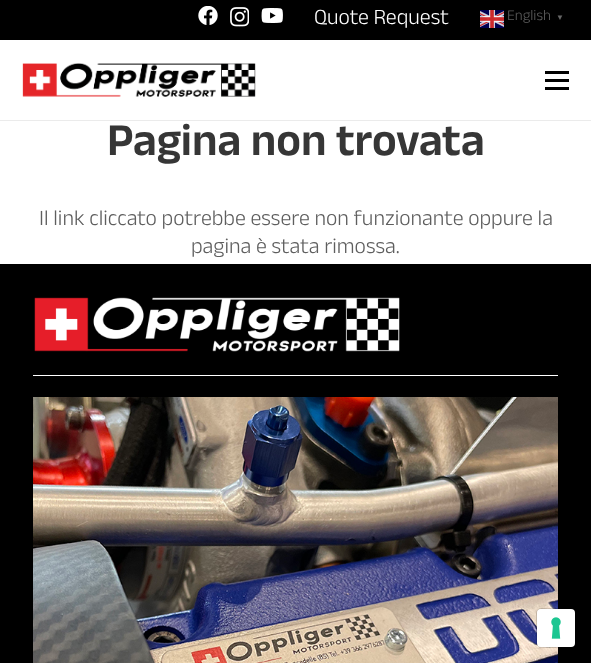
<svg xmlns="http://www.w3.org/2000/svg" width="591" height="663">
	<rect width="100%" height="100%" fill="#FFFFFF" />
	<rect x="0" y="0" width="591" height="40" fill="#000000" />
	<image x="198" y="6" width="20" height="19" href="assets/img1.png" />
	<image x="230" y="7" width="19" height="20" href="assets/img2.png" />
	<image x="261" y="8" width="22" height="15" href="assets/img3.png" />
	<text x="314" y="24" font-family="Anek Devanagari" font-size="22" font-weight="300" fill="#FFFFFF">Quote Request</text>
	<image x="480" y="10" width="24" height="18" href="assets/img4.png" />
	<text x="507" y="20" font-family="Anek Devanagari" font-size="15" font-weight="300" fill="#5E5E5E">English</text>
	<text x="556" y="20" font-family="Liberation Serif" font-size="8" font-weight="700" fill="#666666">▼</text>
	<rect x="0" y="120" width="591" height="1" fill="#EBEBEB" />
	<image x="22" y="63" width="234" height="34" href="assets/img5.png" />
	<rect x="545" y="79" width="24" height="3" fill="#000000" />
	<rect x="545" y="71" width="24" height="3" fill="#000000" />
	<rect x="545" y="87" width="24" height="3" fill="#000000" />
	<text x="107" y="155" font-family="Anek Devanagari" font-size="46" font-weight="600" fill="#363636">Pagina non trovata</text>
	<g font-family="Anek Devanagari" font-size="22" font-weight="300" fill="#5E5E5E">
		<text x="39" y="225">Il link cliccato potrebbe essere non funzionante oppure la</text>
		<text x="191" y="253">pagina è stata rimossa.</text>
	</g>
	<rect x="0" y="264" width="591" height="399" fill="#000000" />
	<image x="34" y="297" width="366" height="55" href="assets/img6.png" />
	<rect x="33" y="375" width="525" height="1" fill="#FFFFFF" />
	<image x="33" y="397" width="525" height="266" href="assets/img7.png" />
	<rect x="536.5" y="608.5" width="39" height="39" rx="4.5" fill="none" stroke="#000000" stroke-opacity="0.15" />
	<rect x="537" y="609" width="38" height="38" rx="4" fill="#FFFFFF" />
	<image x="551" y="617" width="10" height="22" href="assets/img8.png" />
</svg>
